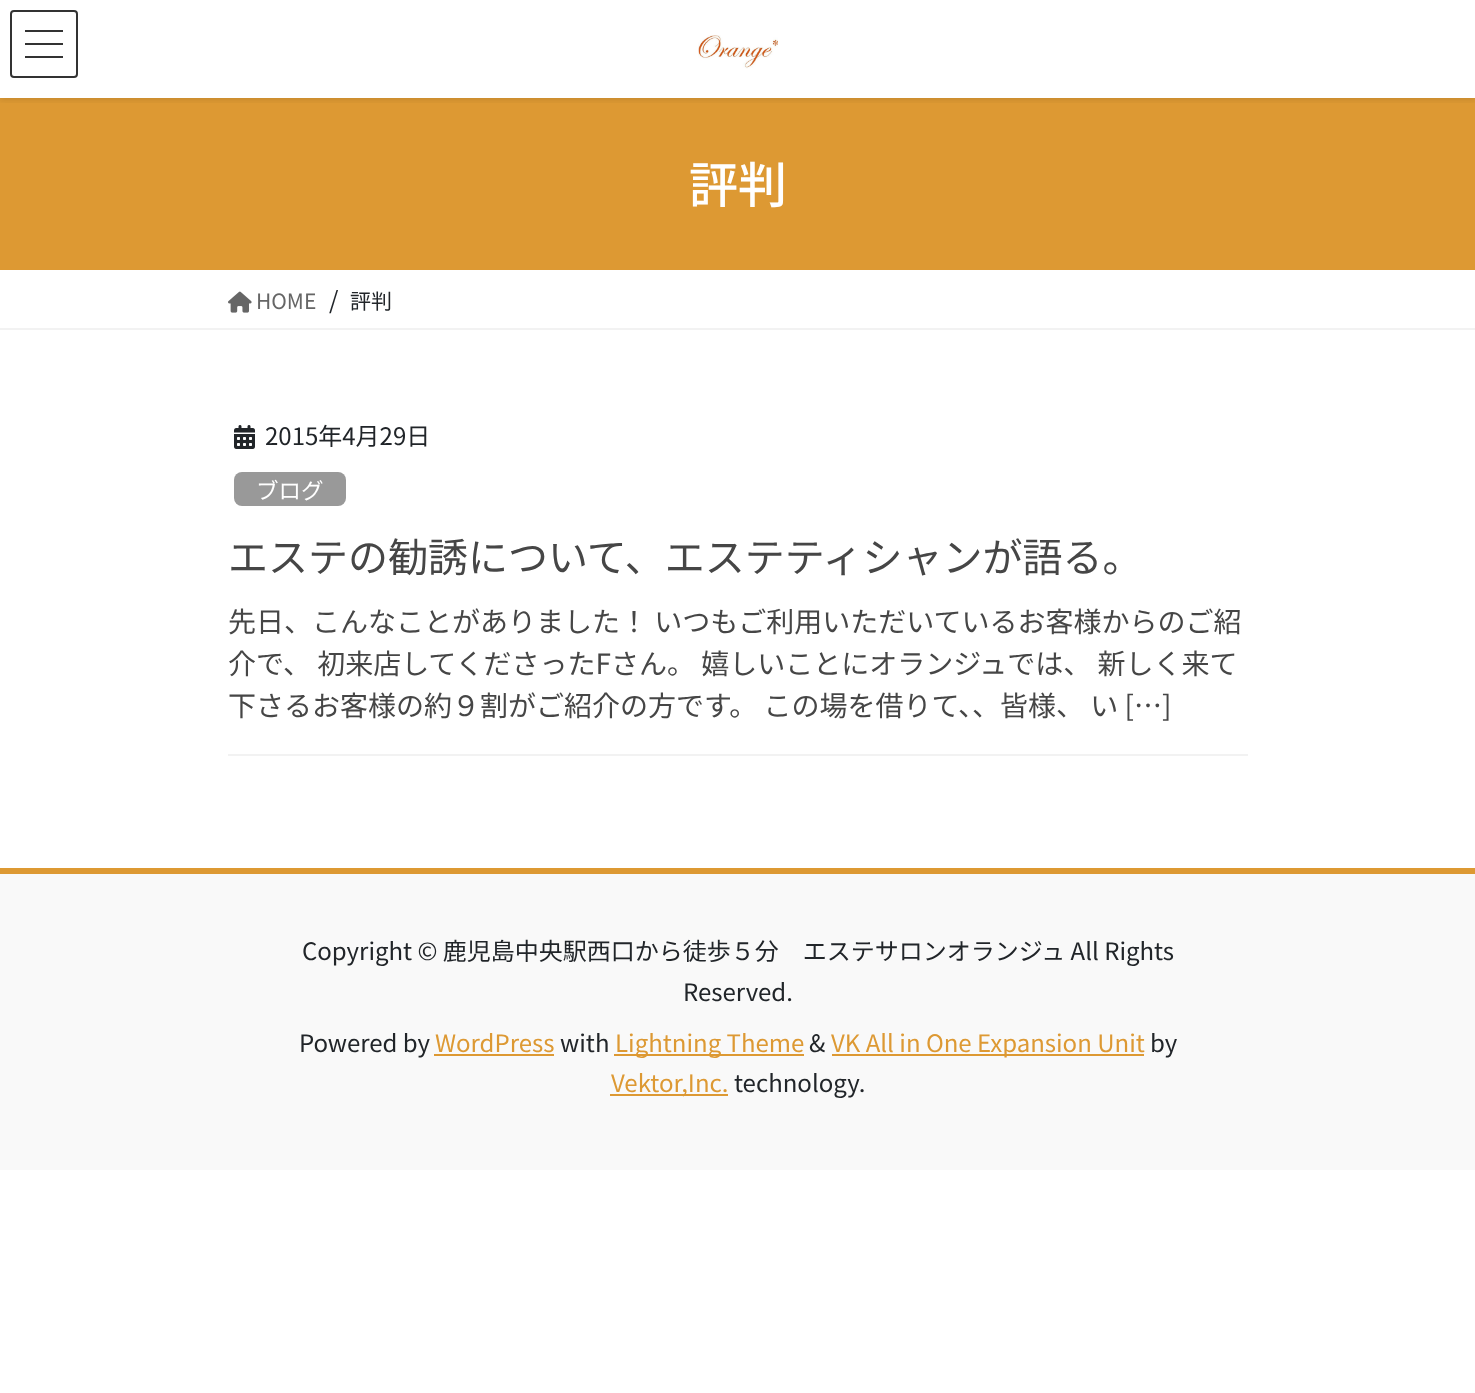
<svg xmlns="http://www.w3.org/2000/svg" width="1475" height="1393">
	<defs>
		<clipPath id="clip1"><rect x="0" y="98" width="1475" height="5" /></clipPath>
	</defs>
	<rect width="100%" height="100%" fill="#FFFFFF" />
	<rect x="0" y="98" width="1475" height="172" fill="#DD9933" />
	<g clip-path="url(#clip1)">
		<rect x="0" y="2" width="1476" height="98" fill="#000000" fill-opacity="0.1" filter="blur(3px)" />
	</g>
	<image x="698" y="35" width="80" height="34" href="assets/img1.png" />
	<rect x="25" y="30" width="38" height="2" fill="#333333" />
	<rect x="25" y="43" width="38" height="2" fill="#333333" />
	<rect x="25" y="56" width="38" height="2" fill="#333333" />
	<rect x="11" y="11" width="66" height="66" rx="3" fill="none" stroke="#333333" stroke-width="2" />
	<text x="689" y="203" font-family="Noto Sans JP" font-size="49" font-weight="500" fill="#FFFFFF">評判</text>
	<rect x="0" y="328" width="1475" height="2" fill="#F2F2F2" />
	<image x="228" y="291" width="24" height="22" href="assets/img2.png" />
	<text x="256" y="309" font-family="Noto Sans JP" font-size="21" fill="#666666">HOME</text>
	<text x="329" y="309" font-family="Noto Sans JP" font-size="24" fill="#212529">/</text>
	<text x="350" y="309" font-family="Noto Sans JP" font-size="21" fill="#212529">評判</text>
	<rect x="228" y="754" width="1020" height="2" fill="#F2F2F2" />
	<image x="234" y="425" width="21" height="24" href="assets/img3.png" />
	<text x="265" y="445" font-family="Noto Sans JP" font-size="24" fill="#212529">2015年4月29日</text>
	<rect x="234" y="472" width="112" height="34" rx="8" fill="#999999" />
	<text x="256" y="499" font-family="Noto Sans JP" font-size="22.5" fill="#FFFFFF">ブログ</text>
	<text x="228" y="572" font-family="Noto Sans JP" font-size="40" fill="#464646">エステの勧誘について、エステティシャンが語る。</text>
	<g font-family="Noto Sans JP" font-size="28" fill="#464646">
		<text x="228" y="632">先日、こんなことがありました！ いつもご利用いただいているお客様からのご紹</text>
		<text x="228" y="674">介で、 初来店してくださったFさん。 嬉しいことにオランジュでは、 新しく来て</text>
		<text x="228" y="716">下さるお客様の約９割がご紹介の方です。 この場を借りて、、皆様、 い […]</text>
	</g>
	<rect x="0" y="874" width="1475" height="296" fill="#F9F9F9" />
	<rect x="0" y="868" width="1475" height="6" fill="#DD9933" />
	<g font-family="Noto Sans JP" font-size="24" fill="#212529">
		<text x="302" y="960">Copyright © 鹿児島中央駅西口から徒歩５分　エステサロンオランジュ All Rights</text>
		<text x="683" y="1001">Reserved.</text>
		<text x="299" y="1052">Powered by</text>
	</g>
	<text x="435" y="1052" font-family="Noto Sans JP" font-size="24" fill="#DD9933">WordPress</text>
	<rect x="434" y="1054" width="120" height="2" fill="#DD9933" />
	<text x="560" y="1052" font-family="Noto Sans JP" font-size="24" fill="#212529">with</text>
	<rect x="614" y="1054" width="190" height="2" fill="#DD9933" />
	<text x="615" y="1052" font-family="Noto Sans JP" font-size="24" fill="#DD9933">Lightning Theme</text>
	<text x="809" y="1052" font-family="Noto Sans JP" font-size="24" fill="#212529">&amp;</text>
	<rect x="832" y="1054" width="312" height="2" fill="#DD9933" />
	<text x="831" y="1052" font-family="Noto Sans JP" font-size="24" fill="#DD9933">VK All in One Expansion Unit</text>
	<text x="1150" y="1052" font-family="Noto Sans JP" font-size="24" fill="#212529">by</text>
	<rect x="610" y="1094" width="118" height="2" fill="#DD9933" />
	<text x="611" y="1092" font-family="Noto Sans JP" font-size="24" fill="#DD9933">Vektor,Inc.</text>
	<text x="734" y="1092" font-family="Noto Sans JP" font-size="24" fill="#212529">technology.</text>
</svg>
